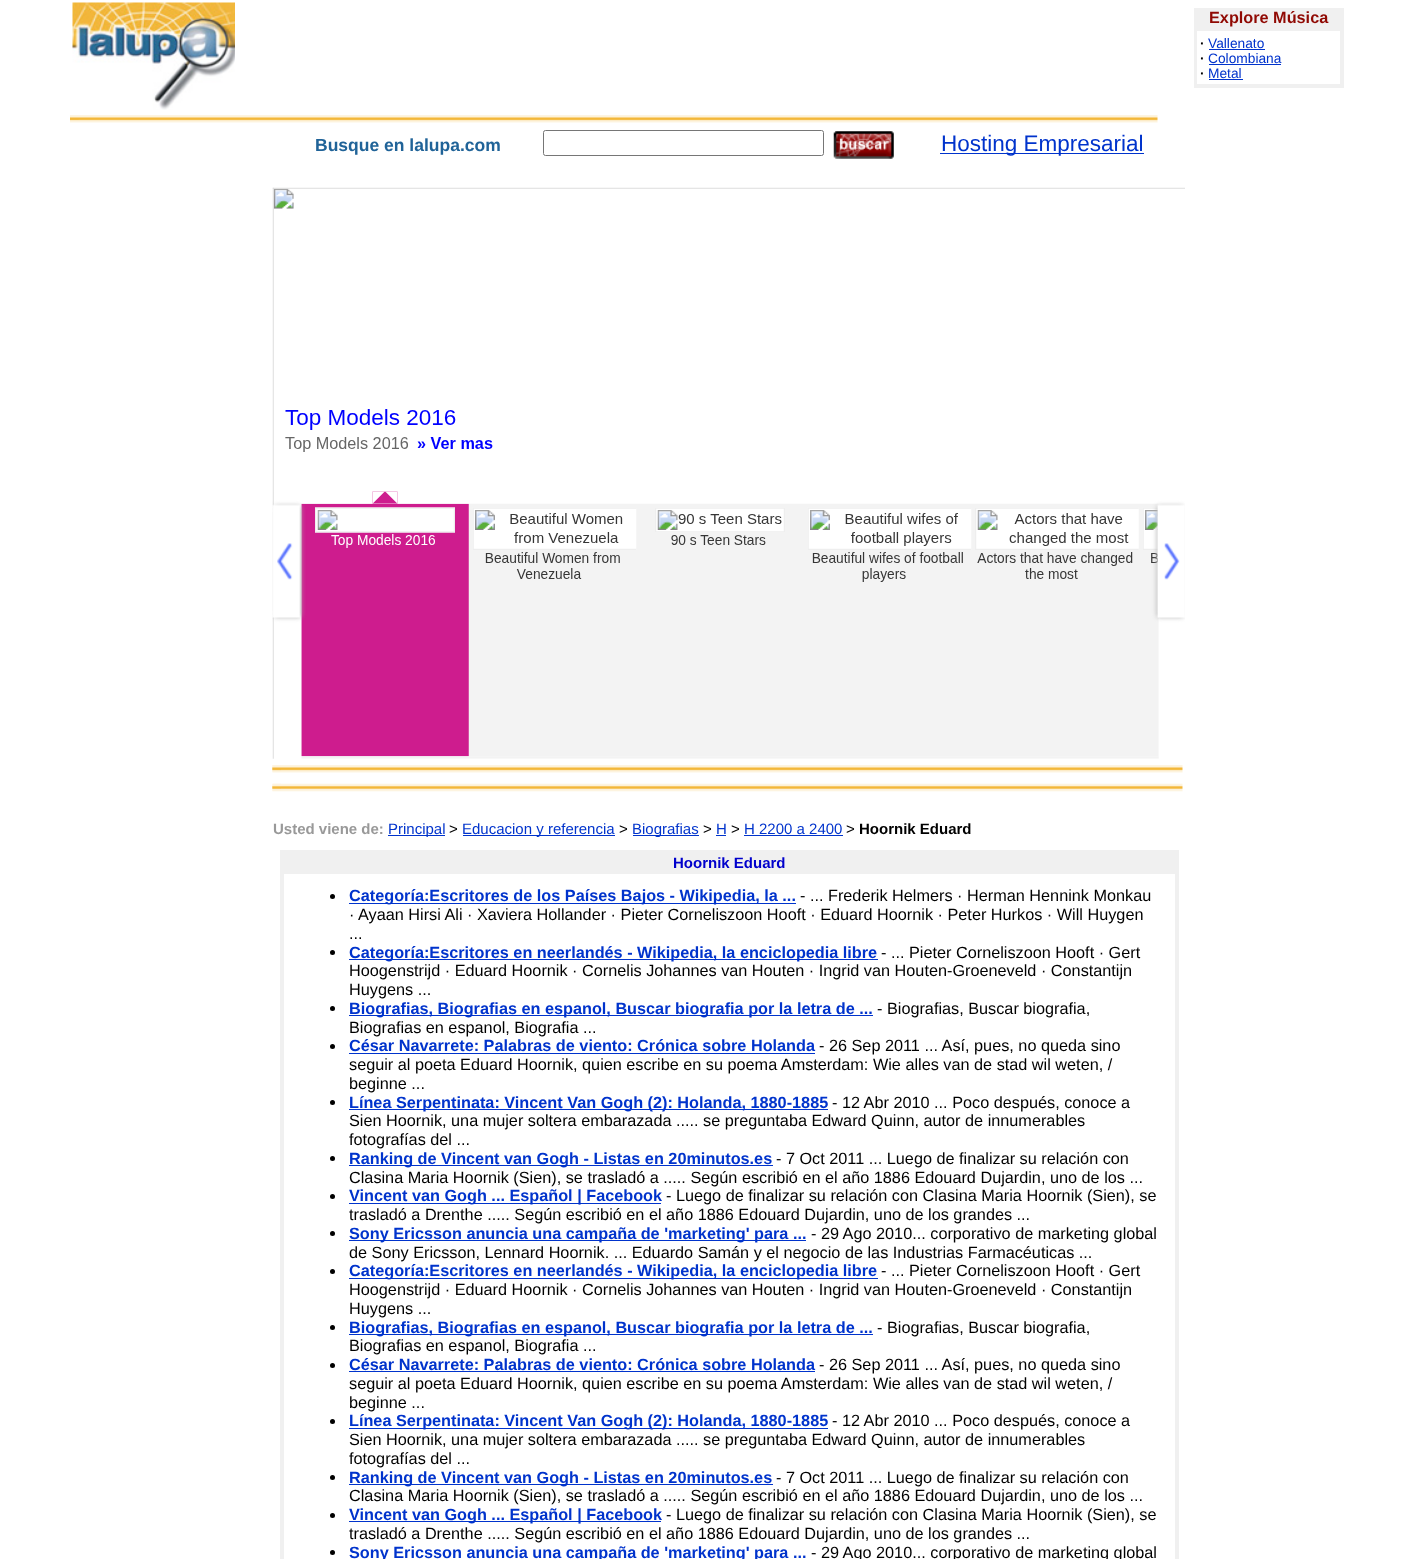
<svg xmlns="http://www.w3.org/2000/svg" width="1426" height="1559">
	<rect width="100%" height="100%" fill="#FFFFFF" />
	<image x="72" y="2" width="163" height="108" href="assets/img1.png" />
	<rect x="1194" y="8" width="150" height="20" fill="#F0F0F0" />
	<text x="1209" y="23" font-family="Liberation Sans" font-size="16.25" font-weight="700" fill="#900903">Explore Música</text>
	<rect x="1195.5" y="29.5" width="147" height="57" fill="none" stroke="#F0F0F0" stroke-width="3" />
	<rect x="1196.5" y="30.5" width="144" height="54" fill="none" stroke="#F0F0F0" />
	<text x="1200" y="48" font-family="Liberation Sans" font-size="13.75" font-weight="700" fill="#000000">·</text>
	<text x="1208" y="48" font-family="Liberation Sans" font-size="13.75" fill="#0033CC">Vallenato</text>
	<rect x="1209" y="49" width="56" height="1" fill="#0033CC" />
	<text x="1200" y="63" font-family="Liberation Sans" font-size="13.75" font-weight="700" fill="#000000">·</text>
	<text x="1208" y="63" font-family="Liberation Sans" font-size="13.75" fill="#0033CC">Colombiana</text>
	<rect x="1209" y="64" width="72" height="1" fill="#0033CC" />
	<text x="1200" y="78" font-family="Liberation Sans" font-size="13.75" font-weight="700" fill="#000000">·</text>
	<text x="1208" y="78" font-family="Liberation Sans" font-size="13.75" fill="#0033CC">Metal</text>
	<rect x="1209" y="79" width="34" height="1" fill="#0033CC" />
	<image x="70" y="115" width="1088" height="8" href="assets/img2.png" />
	<image x="70" y="119" width="9" height="1" href="assets/img3.png" />
	<text x="315" y="151" font-family="Liberation Sans" font-size="17.5" font-weight="700" fill="#206398">Busque en lalupa.com</text>
	<rect x="543.5" y="130.5" width="280" height="25" rx="2" fill="none" stroke="#767676" />
	<image x="833" y="131" width="61" height="28" href="assets/img4.png" />
	<rect x="940" y="153" width="204" height="1" fill="#0033CC" />
	<text x="941" y="151" font-family="Liberation Sans" font-size="22.5" fill="#0033CC">Hosting Empresarial</text>
	<image x="272" y="187" width="913" height="572" href="assets/img5.png" />
	<image x="272" y="765" width="911" height="8" href="assets/img6.png" />
	<image x="272" y="765" width="9" height="7" href="assets/img7.png" />
	<image x="272" y="783" width="911" height="9" href="assets/img8.png" />
	<image x="272" y="783" width="9" height="8" href="assets/img9.png" />
	<text x="273" y="834" font-family="Liberation Sans" font-size="15" font-weight="700" fill="#999999">Usted viene de:</text>
	<rect x="388" y="835" width="57" height="1" fill="#0033CC" />
	<text x="388" y="834" font-family="Liberation Sans" font-size="15" fill="#0033CC">Principal</text>
	<text x="449" y="834" font-family="Liberation Sans" font-size="15" fill="#000000">&gt;</text>
	<rect x="463" y="835" width="152" height="1" fill="#0033CC" />
	<text x="462" y="834" font-family="Liberation Sans" font-size="15" fill="#0033CC">Educacion y referencia</text>
	<text x="619" y="834" font-family="Liberation Sans" font-size="15" fill="#000000">&gt;</text>
	<rect x="633" y="835" width="66" height="1" fill="#0033CC" />
	<text x="632" y="834" font-family="Liberation Sans" font-size="15" fill="#0033CC">Biografias</text>
	<text x="703" y="834" font-family="Liberation Sans" font-size="15" fill="#000000">&gt;</text>
	<text x="716" y="834" font-family="Liberation Sans" font-size="15" fill="#0033CC">H</text>
	<rect x="716" y="835" width="10" height="1" fill="#0033CC" />
	<text x="731" y="834" font-family="Liberation Sans" font-size="15" fill="#000000">&gt;</text>
	<text x="744" y="834" font-family="Liberation Sans" font-size="15" fill="#0033CC">H 2200 a 2400</text>
	<rect x="744" y="835" width="99" height="1" fill="#0033CC" />
	<text x="846" y="834" font-family="Liberation Sans" font-size="15" fill="#000000">&gt;</text>
	<text x="859" y="834" font-family="Liberation Sans" font-size="15" font-weight="700" fill="#000000">Hoornik Eduard</text>
	<rect x="281.5" y="851.5" width="896" height="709" fill="none" stroke="#F0F0F0" stroke-width="3" />
	<rect x="283" y="853" width="893" height="20" fill="#F0F0F0" />
	<text x="673" y="868" font-family="Liberation Sans" font-size="15" font-weight="700" fill="#0000CC">Hoornik Eduard</text>
	<rect x="283.5" y="873.5" width="892" height="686" fill="none" stroke="#F0F0F0" />
	<circle cx="332.5" cy="896.5" r="2.5" fill="#000000" />
	<rect x="349" y="903" width="447" height="1" fill="#0033CC" />
	<text x="349" y="901" font-family="Liberation Sans" font-size="16.25" font-weight="700" fill="#0033CC">Categoría:Escritores de los Países Bajos - Wikipedia, la ...</text>
	<g font-family="Liberation Sans" font-size="16.25" fill="#000000">
		<text x="800" y="901">- ... Frederik Helmers · Herman Hennink Monkau</text>
		<text x="349" y="920">· Ayaan Hirsi Ali · Xaviera Hollander · Pieter Corneliszoon Hooft · Eduard Hoornik · Peter Hurkos · Will Huygen</text>
		<text x="349" y="939">...</text>
	</g>
	<circle cx="332.5" cy="952.5" r="2.5" fill="#000000" />
	<rect x="349" y="959" width="529" height="1" fill="#0033CC" />
	<text x="349" y="958" font-family="Liberation Sans" font-size="16.25" font-weight="700" fill="#0033CC">Categoría:Escritores en neerlandés - Wikipedia, la enciclopedia libre</text>
	<g font-family="Liberation Sans" font-size="16.25" fill="#000000">
		<text x="881" y="958">- ... Pieter Corneliszoon Hooft · Gert</text>
		<text x="349" y="976">Hoogenstrijd · Eduard Hoornik · Cornelis Johannes van Houten · Ingrid van Houten-Groeneveld · Constantijn</text>
		<text x="349" y="995">Huygens ...</text>
	</g>
	<circle cx="332.5" cy="1008.5" r="2.5" fill="#000000" />
	<rect x="349" y="1015" width="524" height="1" fill="#0033CC" />
	<text x="349" y="1014" font-family="Liberation Sans" font-size="16.25" font-weight="700" fill="#0033CC">Biografias, Biografias en espanol, Buscar biografia por la letra de ...</text>
	<g font-family="Liberation Sans" font-size="16.25" fill="#000000">
		<text x="877" y="1014">- Biografias, Buscar biografia,</text>
		<text x="349" y="1033">Biografias en espanol, Biografia ...</text>
	</g>
	<circle cx="332.5" cy="1046.5" r="2.5" fill="#000000" />
	<text x="349" y="1051" font-family="Liberation Sans" font-size="16.25" font-weight="700" fill="#0033CC">César Navarrete: Palabras de viento: Crónica sobre Holanda</text>
	<rect x="349" y="1053" width="466" height="1" fill="#0033CC" />
	<g font-family="Liberation Sans" font-size="16.25" fill="#000000">
		<text x="819" y="1051">- 26 Sep 2011 ... Así, pues, no queda sino</text>
		<text x="349" y="1070">seguir al poeta Eduard Hoornik, quien escribe en su poema Amsterdam: Wie alles van de stad wil weten, /</text>
		<text x="349" y="1089">beginne ...</text>
	</g>
	<circle cx="332.5" cy="1102.5" r="2.5" fill="#000000" />
	<rect x="349" y="1109" width="479" height="1" fill="#0033CC" />
	<text x="349" y="1108" font-family="Liberation Sans" font-size="16.25" font-weight="700" fill="#0033CC">Línea Serpentinata: Vincent Van Gogh (2): Holanda, 1880-1885</text>
	<g font-family="Liberation Sans" font-size="16.25" fill="#000000">
		<text x="832" y="1108">- 12 Abr 2010 ... Poco después, conoce a</text>
		<text x="349" y="1126">Sien Hoornik, una mujer soltera embarazada ..... se preguntaba Edward Quinn, autor de innumerables</text>
		<text x="349" y="1145">fotografías del ...</text>
	</g>
	<circle cx="332.5" cy="1158.5" r="2.5" fill="#000000" />
	<rect x="349" y="1165" width="424" height="1" fill="#0033CC" />
	<text x="349" y="1164" font-family="Liberation Sans" font-size="16.25" font-weight="700" fill="#0033CC">Ranking de Vincent van Gogh - Listas en 20minutos.es</text>
	<g font-family="Liberation Sans" font-size="16.25" fill="#000000">
		<text x="776" y="1164">- 7 Oct 2011 ... Luego de finalizar su relación con</text>
		<text x="349" y="1183">Clasina Maria Hoornik (Sien), se trasladó a ..... Según escribió en el año 1886 Edouard Dujardin, uno de los ...</text>
	</g>
	<circle cx="332.5" cy="1196.5" r="2.5" fill="#000000" />
	<rect x="349" y="1203" width="312" height="1" fill="#0033CC" />
	<text x="349" y="1201" font-family="Liberation Sans" font-size="16.25" font-weight="700" fill="#0033CC">Vincent van Gogh ... Español | Facebook</text>
	<g font-family="Liberation Sans" font-size="16.25" fill="#000000">
		<text x="666" y="1201">- Luego de finalizar su relación con Clasina Maria Hoornik (Sien), se</text>
		<text x="349" y="1220">trasladó a Drenthe ..... Según escribió en el año 1886 Edouard Dujardin, uno de los grandes ...</text>
	</g>
	<circle cx="332.5" cy="1233.5" r="2.5" fill="#000000" />
	<rect x="349" y="1240" width="457" height="1" fill="#0033CC" />
	<text x="349" y="1239" font-family="Liberation Sans" font-size="16.25" font-weight="700" fill="#0033CC">Sony Ericsson anuncia una campaña de 'marketing' para ...</text>
	<g font-family="Liberation Sans" font-size="16.25" fill="#000000">
		<text x="811" y="1239">- 29 Ago 2010... corporativo de marketing global</text>
		<text x="349" y="1258">de Sony Ericsson, Lennard Hoornik. ... Eduardo Samán y el negocio de las Industrias Farmacéuticas ...</text>
	</g>
	<circle cx="332.5" cy="1271.5" r="2.5" fill="#000000" />
	<rect x="349" y="1278" width="529" height="1" fill="#0033CC" />
	<text x="349" y="1276" font-family="Liberation Sans" font-size="16.25" font-weight="700" fill="#0033CC">Categoría:Escritores en neerlandés - Wikipedia, la enciclopedia libre</text>
	<g font-family="Liberation Sans" font-size="16.25" fill="#000000">
		<text x="881" y="1276">- ... Pieter Corneliszoon Hooft · Gert</text>
		<text x="349" y="1295">Hoogenstrijd · Eduard Hoornik · Cornelis Johannes van Houten · Ingrid van Houten-Groeneveld · Constantijn</text>
		<text x="349" y="1314">Huygens ...</text>
	</g>
	<circle cx="332.5" cy="1327.5" r="2.5" fill="#000000" />
	<rect x="349" y="1334" width="524" height="1" fill="#0033CC" />
	<text x="349" y="1333" font-family="Liberation Sans" font-size="16.25" font-weight="700" fill="#0033CC">Biografias, Biografias en espanol, Buscar biografia por la letra de ...</text>
	<g font-family="Liberation Sans" font-size="16.25" fill="#000000">
		<text x="877" y="1333">- Biografias, Buscar biografia,</text>
		<text x="349" y="1351">Biografias en espanol, Biografia ...</text>
	</g>
	<circle cx="332.5" cy="1365.5" r="2.5" fill="#000000" />
	<text x="349" y="1370" font-family="Liberation Sans" font-size="16.25" font-weight="700" fill="#0033CC">César Navarrete: Palabras de viento: Crónica sobre Holanda</text>
	<rect x="349" y="1371" width="466" height="1" fill="#0033CC" />
	<g font-family="Liberation Sans" font-size="16.25" fill="#000000">
		<text x="819" y="1370">- 26 Sep 2011 ... Así, pues, no queda sino</text>
		<text x="349" y="1389">seguir al poeta Eduard Hoornik, quien escribe en su poema Amsterdam: Wie alles van de stad wil weten, /</text>
		<text x="349" y="1408">beginne ...</text>
	</g>
	<circle cx="332.5" cy="1421.5" r="2.5" fill="#000000" />
	<rect x="349" y="1428" width="479" height="1" fill="#0033CC" />
	<text x="349" y="1426" font-family="Liberation Sans" font-size="16.25" font-weight="700" fill="#0033CC">Línea Serpentinata: Vincent Van Gogh (2): Holanda, 1880-1885</text>
	<g font-family="Liberation Sans" font-size="16.25" fill="#000000">
		<text x="832" y="1426">- 12 Abr 2010 ... Poco después, conoce a</text>
		<text x="349" y="1445">Sien Hoornik, una mujer soltera embarazada ..... se preguntaba Edward Quinn, autor de innumerables</text>
		<text x="349" y="1464">fotografías del ...</text>
	</g>
	<circle cx="332.5" cy="1477.5" r="2.5" fill="#000000" />
	<rect x="349" y="1484" width="424" height="1" fill="#0033CC" />
	<text x="349" y="1483" font-family="Liberation Sans" font-size="16.25" font-weight="700" fill="#0033CC">Ranking de Vincent van Gogh - Listas en 20minutos.es</text>
	<g font-family="Liberation Sans" font-size="16.25" fill="#000000">
		<text x="776" y="1483">- 7 Oct 2011 ... Luego de finalizar su relación con</text>
		<text x="349" y="1501">Clasina Maria Hoornik (Sien), se trasladó a ..... Según escribió en el año 1886 Edouard Dujardin, uno de los ...</text>
	</g>
	<circle cx="332.5" cy="1515.5" r="2.5" fill="#000000" />
	<rect x="349" y="1521" width="312" height="1" fill="#0033CC" />
	<text x="349" y="1520" font-family="Liberation Sans" font-size="16.25" font-weight="700" fill="#0033CC">Vincent van Gogh ... Español | Facebook</text>
	<g font-family="Liberation Sans" font-size="16.25" fill="#000000">
		<text x="666" y="1520">- Luego de finalizar su relación con Clasina Maria Hoornik (Sien), se</text>
		<text x="349" y="1539">trasladó a Drenthe ..... Según escribió en el año 1886 Edouard Dujardin, uno de los grandes ...</text>
	</g>
	<circle cx="332.5" cy="1552.5" r="2.5" fill="#000000" />
	<text x="349" y="1558" font-family="Liberation Sans" font-size="16.25" font-weight="700" fill="#0033CC">Sony Ericsson anuncia una campaña de 'marketing' para ...</text>
	<text x="811" y="1558" font-family="Liberation Sans" font-size="16.25" fill="#000000">- 29 Ago 2010... corporativo de marketing global</text>
</svg>
